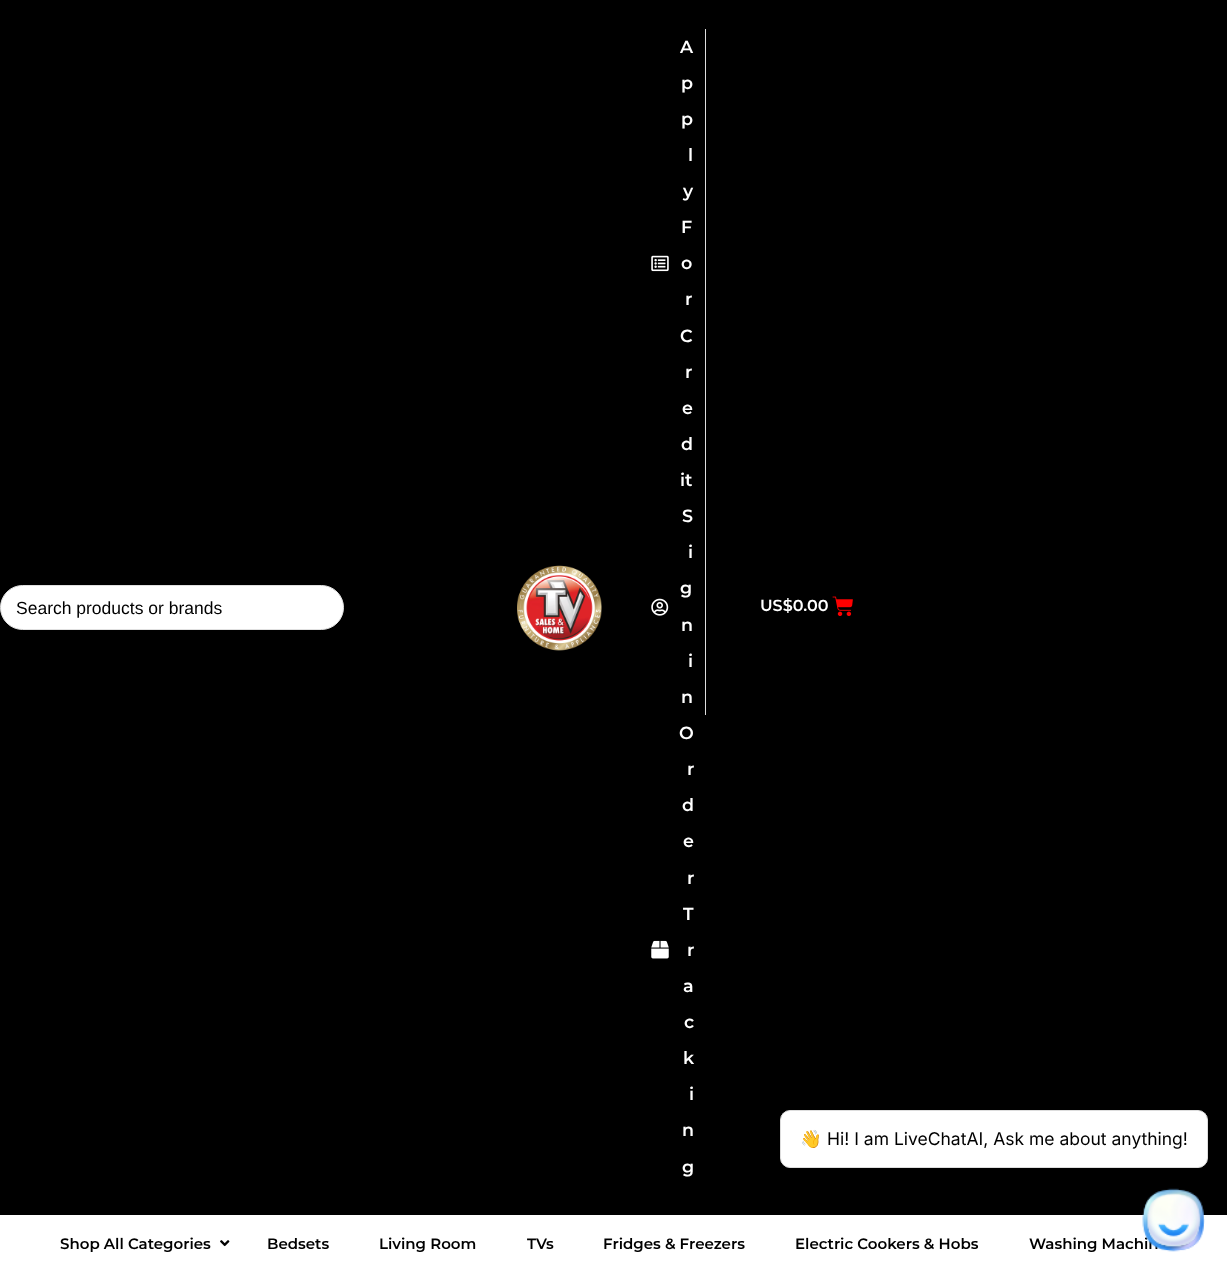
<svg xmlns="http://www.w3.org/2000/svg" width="1227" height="1273">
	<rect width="100%" height="100%" fill="#FFFFFF" />
	<rect x="0" y="0" width="1227" height="1215" fill="#000000" />
	<rect x="0.5" y="585.5" width="343" height="44" rx="22" fill="#FFFFFF" stroke="#E0E0E0" />
	<text x="16" y="614" font-family="Liberation Sans" font-size="17.5" fill="#000000">Search products or brands</text>
	<image x="517" y="565" width="85" height="86" href="assets/img1.png" />
	<image x="651" y="255" width="18" height="17" href="assets/img2.png" />
	<g font-family="Montserrat" font-size="17.5" font-weight="600" fill="#FFFFFF">
		<text x="680" y="53">A</text>
		<text x="681" y="89">p</text>
		<text x="681" y="125">p</text>
		<text x="688" y="161">l</text>
		<text x="683" y="197">y</text>
		<text x="681" y="233">F</text>
		<text x="681" y="269">o</text>
		<text x="685" y="305">r</text>
		<text x="680" y="342">C</text>
		<text x="685" y="378">r</text>
		<text x="682" y="414">e</text>
		<text x="681" y="450">d</text>
		<text x="680" y="486">it</text>
	</g>
	<rect x="705" y="29" width="1" height="686" fill="#DDDDDD" />
	<image x="651" y="598" width="18" height="18" href="assets/img3.png" />
	<g font-family="Montserrat" font-size="17.5" font-weight="600" fill="#FFFFFF">
		<text x="682" y="522">S</text>
		<text x="688" y="558">i</text>
		<text x="680" y="594">g</text>
		<text x="681" y="631">n</text>
		<text x="688" y="667">i</text>
		<text x="681" y="703">n</text>
	</g>
	<image x="651" y="940" width="18" height="19" href="assets/img4.png" />
	<g font-family="Montserrat" font-size="17.5" font-weight="600" fill="#FFFFFF">
		<text x="679" y="739">O</text>
		<text x="687" y="775">r</text>
		<text x="682" y="811">d</text>
		<text x="683" y="847">e</text>
		<text x="687" y="884">r</text>
		<text x="683" y="920">T</text>
		<text x="687" y="956">r</text>
		<text x="683" y="992">a</text>
		<text x="684" y="1028">c</text>
		<text x="683" y="1064">k</text>
		<text x="689" y="1100">i</text>
		<text x="682" y="1136">n</text>
		<text x="682" y="1173">g</text>
	</g>
	<text x="760" y="611" font-family="Montserrat" font-size="16" font-weight="600" fill="#FFFFFF">US$0.00</text>
	<image x="832" y="596" width="21" height="20" href="assets/img5.png" />
	<text x="60" y="1249" font-family="Montserrat" font-size="15" font-weight="600" fill="#000000">Shop All Categories</text>
	<image x="220" y="1240" width="10" height="7" href="assets/img6.png" />
	<g font-family="Montserrat" font-size="15" font-weight="600" fill="#000000">
		<text x="267" y="1249">Bedsets</text>
		<text x="379" y="1249">Living Room</text>
		<text x="527" y="1249">TVs</text>
		<text x="603" y="1249">Fridges &amp; Freezers</text>
		<text x="795" y="1249">Electric Cookers &amp; Hobs</text>
		<text x="1029" y="1249">Washing Machin</text>
	</g>
	<rect x="780.5" y="1110.5" width="427" height="57" rx="9.5" fill="#FFFFFF" stroke="#DDDDDD" />
	<text x="800" y="1145" font-family="Noto Color Emoji" font-size="17.5" fill="#000000">👋</text>
	<text x="827" y="1145" font-family="Inter" font-size="17.5" fill="#000000">Hi! I am LiveChatAI, Ask me about anything!</text>
	<image x="1142" y="1188" width="63" height="64" href="assets/img7.png" />
</svg>
